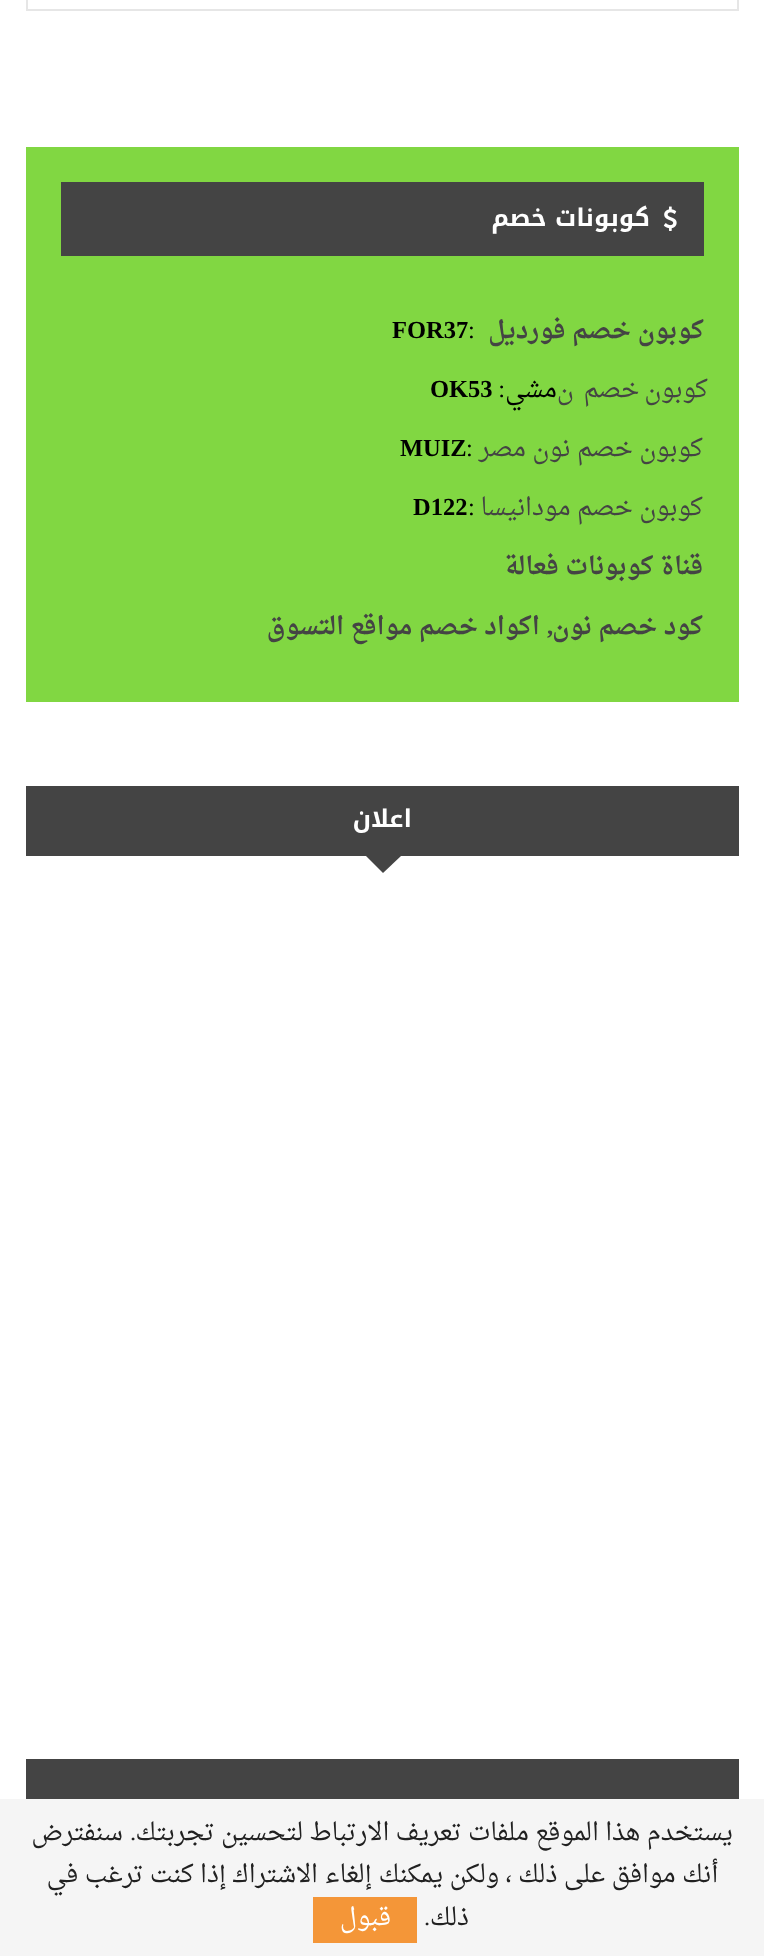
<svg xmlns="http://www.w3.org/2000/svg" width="764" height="1956">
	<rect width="100%" height="100%" fill="#FFFFFF" />
	<rect x="27" y="-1" width="711" height="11" fill="none" stroke="#E6E6E6" stroke-width="2" />
	<rect x="26" y="147" width="713" height="555" fill="#81D742" />
	<rect x="61" y="182" width="643" height="74" fill="#444444" />
	<image x="663" y="206" width="14" height="25" href="assets/img1.png" />
	<text x="650" y="226" font-family="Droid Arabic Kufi" font-size="24.5" font-weight="700" direction="rtl" fill="#FFFFFF">كوبونات خصم</text>
	<text x="704" y="338" font-family="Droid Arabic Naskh" font-size="24.5" font-weight="700" direction="rtl" fill="#444444">كوبون خصم فورديل</text>
	<text x="468" y="338" font-family="Liberation Serif" font-size="24.5" fill="#000000">:</text>
	<text x="392" y="338" font-family="Liberation Serif" font-size="24.5" font-weight="700" fill="#000000">FOR37</text>
	<text x="708" y="397" word-spacing="-1.5" font-family="Droid Arabic Naskh" font-size="24.5" direction="rtl" fill="#444444" xml:space="preserve">كوبون خصم  ن</text>
	<text x="557" y="397" font-family="Droid Arabic Naskh" font-size="24.5" direction="rtl" fill="#000000">مشي</text>
	<text x="505" y="397" font-family="Liberation Serif" font-size="24.5" direction="rtl" fill="#000000">:</text>
	<text x="430" y="397" font-family="Liberation Serif" font-size="24.5" font-weight="700" fill="#000000">OK53</text>
	<text x="703" y="456" font-family="Droid Arabic Naskh" font-size="24.5" direction="rtl" fill="#444444">كوبون خصم نون مصر</text>
	<text x="466" y="456" font-family="Liberation Serif" font-size="24.5" fill="#000000">:</text>
	<text x="400" y="456" font-family="Liberation Serif" font-size="24.5" font-weight="700" fill="#000000">MUIZ</text>
	<text x="703" y="515" font-family="Droid Arabic Naskh" font-size="24.5" direction="rtl" fill="#444444">كوبون خصم مودانيسا</text>
	<text x="468" y="515" font-family="Liberation Serif" font-size="24.5" fill="#000000">:</text>
	<text x="413" y="515" font-family="Liberation Serif" font-size="24.5" font-weight="700" fill="#000000">D122</text>
	<g font-family="Droid Arabic Naskh" font-size="24.5" font-weight="700" direction="rtl" fill="#444444">
		<text x="703" y="574">قناة كوبونات فعالة</text>
		<text x="703" y="634">كود خصم نون</text>
	</g>
	<text x="553" y="634" font-family="Liberation Serif" font-size="24.5" font-weight="700" direction="rtl" fill="#444444">,</text>
	<text x="540" y="634" font-family="Droid Arabic Naskh" font-size="24.5" font-weight="700" direction="rtl" fill="#444444">اكواد خصم مواقع التسوق</text>
	<rect x="26" y="786" width="713" height="70" fill="#444444" />
	<text x="412" y="827" font-family="Droid Arabic Kufi" font-size="24.5" font-weight="700" direction="rtl" fill="#FFFFFF">اعلان</text>
	<path d="M366 856H401L383 873Z" fill="#444444" />
	<rect x="26" y="1759" width="713" height="40" fill="#444444" />
	<rect x="0" y="1799" width="764" height="157" fill="#F5F5F5" />
	<text x="733" y="1840" font-family="Droid Arabic Naskh" font-size="24.5" direction="rtl" fill="#212121">يستخدم هذا الموقع ملفات تعريف الارتباط لتحسين تجربتك</text>
	<text x="136" y="1840" font-family="Liberation Serif" font-size="24.5" direction="rtl" fill="#212121">.</text>
	<g font-family="Droid Arabic Naskh" font-size="24.5" direction="rtl" fill="#212121">
		<text x="123" y="1840">سنفترض</text>
		<text x="718" y="1882">أنك موافق على ذلك ، ولكن يمكنك إلغاء الاشتراك إذا كنت ترغب في</text>
		<text x="469" y="1925">ذلك</text>
	</g>
	<text x="430" y="1925" font-family="Liberation Serif" font-size="24.5" direction="rtl" fill="#212121">.</text>
	<rect x="313" y="1897" width="104" height="46" fill="#F49638" />
	<text x="391" y="1925" font-family="Droid Arabic Naskh" font-size="24.5" direction="rtl" fill="#FFFFFF">قبول</text>
</svg>
